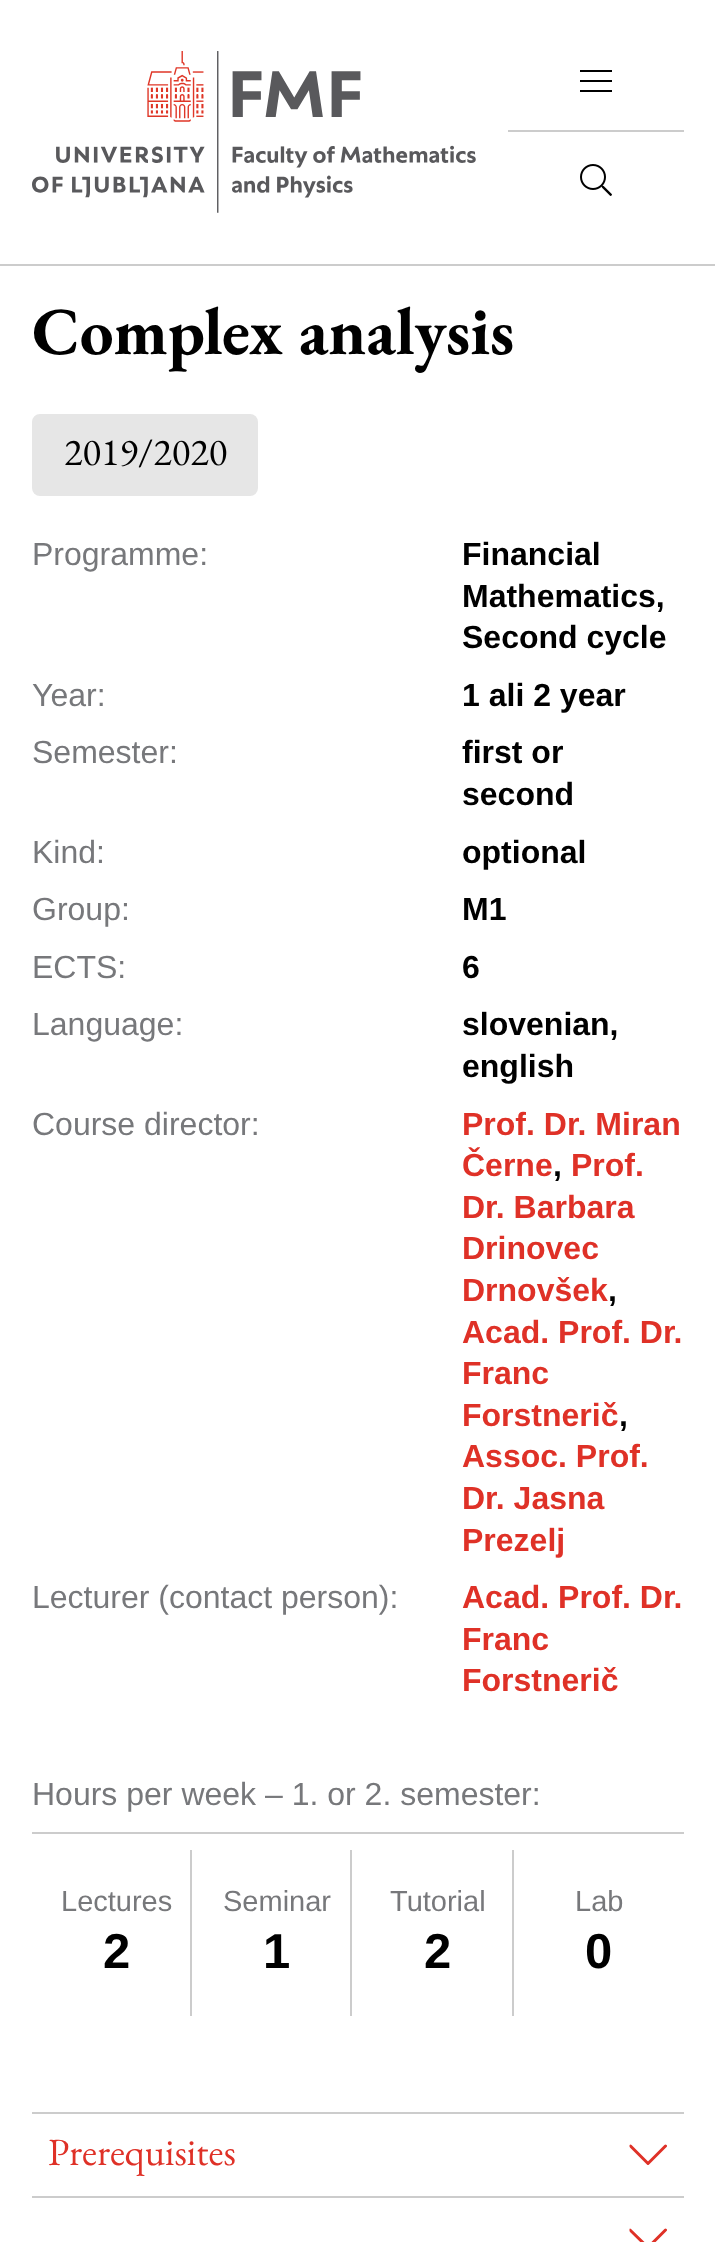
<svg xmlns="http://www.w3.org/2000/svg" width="715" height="2242">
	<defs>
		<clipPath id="clip1"><path d="M668 2135V2173.5H629.5V2135Z" /></clipPath>
		<clipPath id="clip2"><path d="M668 2219V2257.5H629.5V2219Z" /></clipPath>
	</defs>
	<rect width="100%" height="100%" fill="#FFFFFF" />
	<rect x="0" y="264" width="715" height="2" fill="#CCCCCC" />
	<image x="32" y="51" width="444" height="162" href="assets/img1.png" />
	<rect x="508" y="130" width="176" height="2" fill="#CCCCCC" />
	<rect x="580" y="70" width="32" height="2" fill="#000000" />
	<rect x="580" y="80" width="32" height="2" fill="#000000" />
	<rect x="580" y="90" width="32" height="2" fill="#000000" />
	<image x="580" y="164" width="32" height="32" href="assets/img2.png" />
	<text x="32" y="354" font-family="EB Garamond" font-size="67.25" font-weight="700" fill="#000000">Complex analysis</text>
	<rect x="32" y="414" width="226" height="82" rx="8" fill="#E6E6E6" />
	<text x="64" y="465" font-family="EB Garamond" font-size="38.5" fill="#000000">2019/2020</text>
	<text x="32" y="565" font-family="Liberation Sans" font-size="32" fill="#77787B">Programme:</text>
	<g font-family="Liberation Sans" font-size="32" font-weight="700" fill="#000000">
		<text x="462" y="565">Financial</text>
		<text x="462" y="607">Mathematics,</text>
		<text x="462" y="648">Second cycle</text>
	</g>
	<text x="32" y="706" font-family="Liberation Sans" font-size="32" fill="#77787B">Year:</text>
	<text x="462" y="706" font-family="Liberation Sans" font-size="32" font-weight="700" fill="#000000">1 ali 2 year</text>
	<text x="32" y="763" font-family="Liberation Sans" font-size="32" fill="#77787B">Semester:</text>
	<g font-family="Liberation Sans" font-size="32" font-weight="700" fill="#000000">
		<text x="462" y="763">first or</text>
		<text x="462" y="805">second</text>
	</g>
	<text x="32" y="863" font-family="Liberation Sans" font-size="32" fill="#77787B">Kind:</text>
	<text x="462" y="863" font-family="Liberation Sans" font-size="32" font-weight="700" fill="#000000">optional</text>
	<text x="32" y="920" font-family="Liberation Sans" font-size="32" fill="#77787B">Group:</text>
	<text x="462" y="920" font-family="Liberation Sans" font-size="32" font-weight="700" fill="#000000">M1</text>
	<text x="32" y="978" font-family="Liberation Sans" font-size="32" fill="#77787B">ECTS:</text>
	<text x="462" y="978" font-family="Liberation Sans" font-size="32" font-weight="700" fill="#000000">6</text>
	<text x="32" y="1035" font-family="Liberation Sans" font-size="32" fill="#77787B">Language:</text>
	<g font-family="Liberation Sans" font-size="32" font-weight="700" fill="#000000">
		<text x="462" y="1035">slovenian,</text>
		<text x="462" y="1077">english</text>
	</g>
	<text x="32" y="1135" font-family="Liberation Sans" font-size="32" fill="#77787B">Course director:</text>
	<g font-family="Liberation Sans" font-size="32" font-weight="700" fill="#DF3127">
		<text x="462" y="1135">Prof. Dr. Miran</text>
		<text x="462" y="1176">Černe</text>
	</g>
	<text x="553" y="1176" font-family="Liberation Sans" font-size="32" font-weight="700" fill="#000000">,</text>
	<g font-family="Liberation Sans" font-size="32" font-weight="700" fill="#DF3127">
		<text x="571" y="1176">Prof.</text>
		<text x="462" y="1218">Dr. Barbara</text>
		<text x="462" y="1259">Drinovec</text>
		<text x="462" y="1301">Drnovšek</text>
	</g>
	<text x="608" y="1301" font-family="Liberation Sans" font-size="32" font-weight="700" fill="#000000">,</text>
	<g font-family="Liberation Sans" font-size="32" font-weight="700" fill="#DF3127">
		<text x="462" y="1343">Acad. Prof. Dr.</text>
		<text x="462" y="1384">Franc</text>
		<text x="462" y="1426">Forstnerič</text>
	</g>
	<text x="619" y="1426" font-family="Liberation Sans" font-size="32" font-weight="700" fill="#000000">,</text>
	<g font-family="Liberation Sans" font-size="32" font-weight="700" fill="#DF3127">
		<text x="462" y="1467">Assoc. Prof.</text>
		<text x="462" y="1509">Dr. Jasna</text>
		<text x="462" y="1551">Prezelj</text>
	</g>
	<text x="32" y="1608" font-family="Liberation Sans" font-size="32" fill="#77787B">Lecturer (contact person):</text>
	<g font-family="Liberation Sans" font-size="32" font-weight="700" fill="#DF3127">
		<text x="462" y="1608">Acad. Prof. Dr.</text>
		<text x="462" y="1650">Franc</text>
		<text x="462" y="1691">Forstnerič</text>
	</g>
	<rect x="32" y="1832" width="652" height="2" fill="#CCCCCC" />
	<text x="32" y="1805" font-family="Liberation Sans" font-size="32" fill="#77787B">Hours per week – 1. or 2. semester:</text>
	<rect x="190" y="1850" width="2" height="166" fill="#CCCCCC" />
	<text x="61" y="1911" font-family="Liberation Sans" font-size="29" fill="#77787B">Lectures</text>
	<text x="103" y="1968" font-family="Liberation Sans" font-size="49" font-weight="700" fill="#000000">2</text>
	<rect x="350" y="1850" width="2" height="166" fill="#CCCCCC" />
	<text x="223" y="1911" font-family="Liberation Sans" font-size="29" fill="#77787B">Seminar</text>
	<text x="263" y="1968" font-family="Liberation Sans" font-size="49" font-weight="700" fill="#000000">1</text>
	<rect x="512" y="1850" width="2" height="166" fill="#CCCCCC" />
	<text x="390" y="1911" font-family="Liberation Sans" font-size="29" fill="#77787B">Tutorial</text>
	<text x="424" y="1968" font-family="Liberation Sans" font-size="49" font-weight="700" fill="#000000">2</text>
	<text x="575" y="1911" font-family="Liberation Sans" font-size="29" fill="#77787B">Lab</text>
	<text x="585" y="1968" font-family="Liberation Sans" font-size="49" font-weight="700" fill="#000000">0</text>
	<rect x="32" y="2112" width="652" height="2" fill="#CCCCCC" />
	<text x="48" y="2165" font-family="EB Garamond" font-size="38.5" fill="#DF3127">Prerequisites</text>
	<g clip-path="url(#clip1)">
		<path d="M630.5 2146L648 2163.5L665.5 2146" fill="none" stroke="#DF3127" stroke-width="3" stroke-linecap="round" stroke-linejoin="round" />
	</g>
	<rect x="32" y="2196" width="652" height="2" fill="#CCCCCC" />
	<g clip-path="url(#clip2)">
		<g clip-path="url(#clip2)">
			<path d="M630 2230L648 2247.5L665.5 2230" fill="none" stroke="#DF3127" stroke-width="3" stroke-linecap="round" stroke-linejoin="round" />
		</g>
	</g>
</svg>
